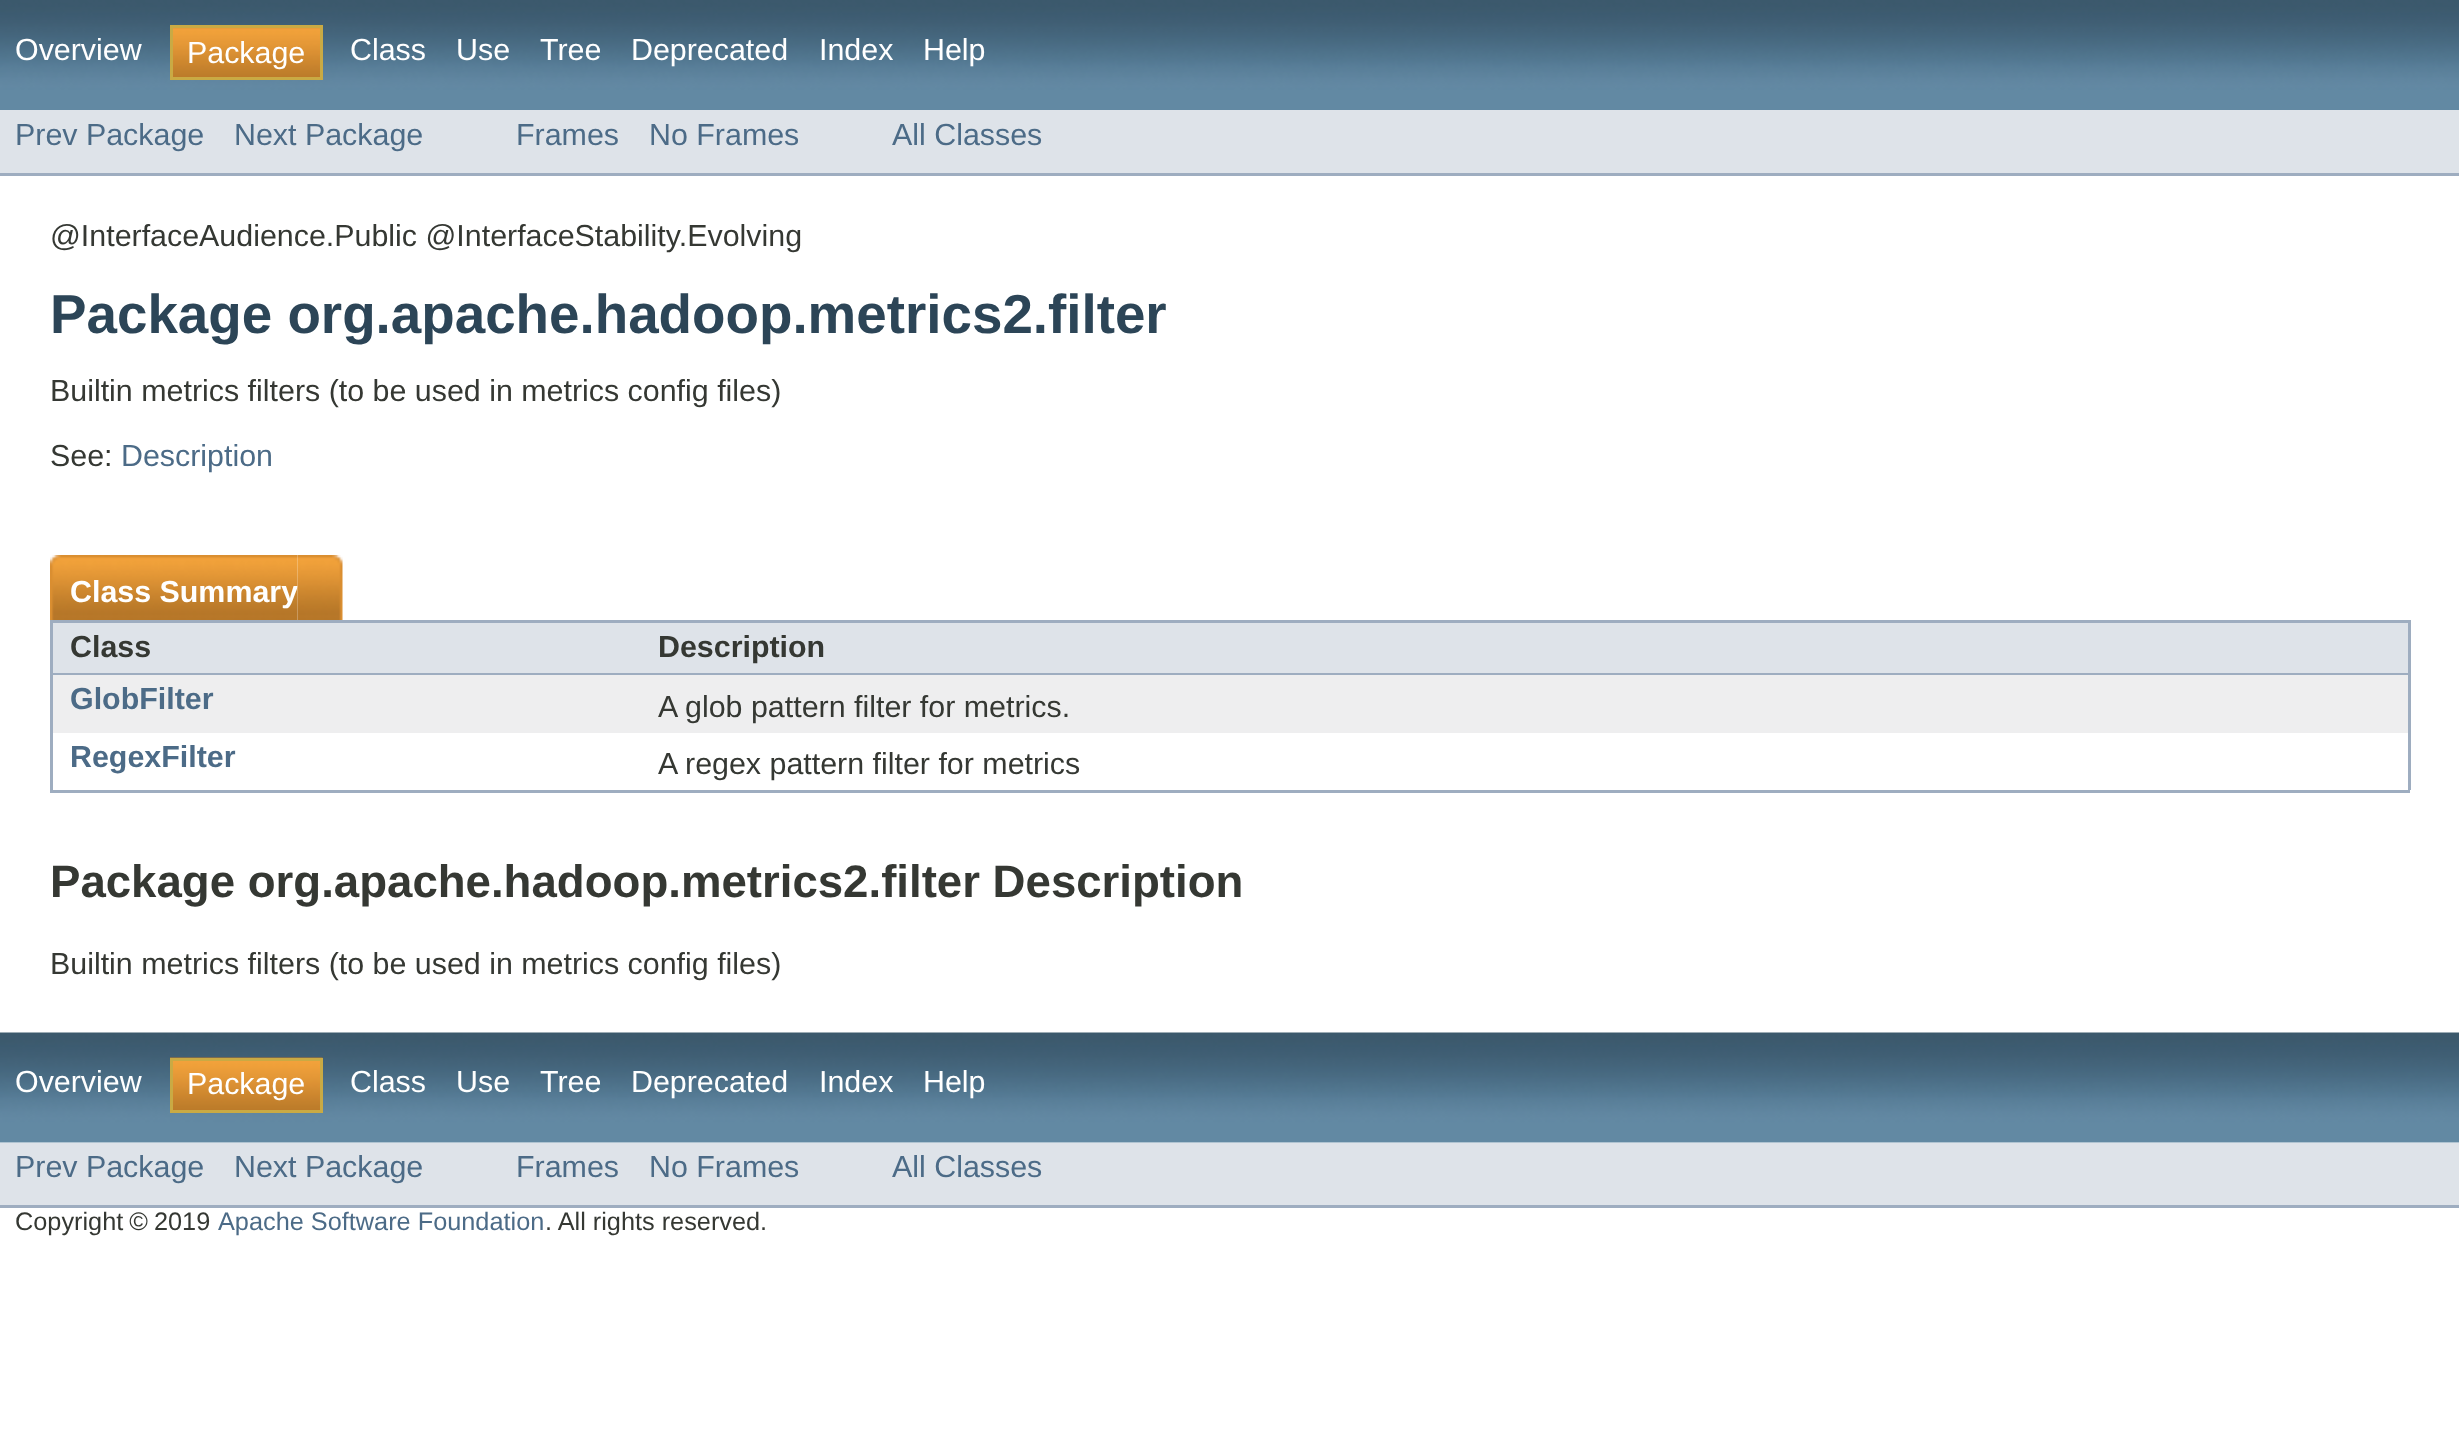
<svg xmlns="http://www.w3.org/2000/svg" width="2459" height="1440">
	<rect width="100%" height="100%" fill="#FFFFFF" />
	<image x="0" y="0" width="2459" height="110" href="assets/img1.png" />
	<text x="15" y="60" font-family="Liberation Sans" font-size="30.4" fill="#FFFFFF">Overview</text>
	<image x="173" y="28" width="147" height="49" href="assets/img2.png" />
	<rect x="171.5" y="26.5" width="150" height="52" fill="none" stroke="#C9AA44" stroke-width="3" />
	<g font-family="Liberation Sans" font-size="30.4" fill="#FFFFFF">
		<text x="187" y="63">Package</text>
		<text x="350" y="60">Class</text>
		<text x="456" y="60">Use</text>
		<text x="540" y="60">Tree</text>
		<text x="631" y="60">Deprecated</text>
		<text x="819" y="60">Index</text>
		<text x="923" y="60">Help</text>
	</g>
	<rect x="0" y="110" width="2459" height="63" fill="#DEE3E9" />
	<rect x="0" y="173" width="2459" height="3" fill="#9EADC0" />
	<g font-family="Liberation Sans" font-size="30.4" fill="#4C6B87">
		<text x="15" y="145">Prev Package</text>
		<text x="234" y="145">Next Package</text>
		<text x="516" y="145">Frames</text>
		<text x="649" y="145">No Frames</text>
		<text x="892" y="145">All Classes</text>
	</g>
	<text x="50" y="246" font-family="Liberation Sans" font-size="30.4" fill="#353833">@InterfaceAudience.Public @InterfaceStability.Evolving</text>
	<text x="50" y="333" font-family="Liberation Sans" font-size="54.75" font-weight="700" fill="#2C4557">Package org.apache.hadoop.metrics2.filter</text>
	<g font-family="Liberation Sans" font-size="30.4" fill="#353833">
		<text x="50" y="401">Builtin metrics filters (to be used in metrics config files)</text>
		<text x="50" y="466">See:</text>
	</g>
	<text x="121" y="466" font-family="Liberation Sans" font-size="30.4" fill="#4C6B87">Description</text>
	<rect x="50" y="790" width="2360" height="3" fill="#9EADC0" />
	<image x="50" y="555" width="248" height="65" href="assets/img3.png" />
	<text x="70" y="602" font-family="Liberation Sans" font-size="30.4" font-weight="700" fill="#FFFFFF">Class Summary</text>
	<image x="297" y="555" width="46" height="65" href="assets/img4.png" />
	<rect x="53" y="623" width="2355" height="50" fill="#DEE3E9" />
	<rect x="50" y="620" width="2360" height="3" fill="#9EADC0" />
	<rect x="50" y="673" width="590" height="2" fill="#9EADC0" />
	<rect x="50" y="620" width="3" height="170" fill="#9EADC0" />
	<text x="70" y="657" font-family="Liberation Sans" font-size="30.4" font-weight="700" fill="#353833">Class</text>
	<rect x="2408" y="620" width="3" height="170" fill="#9EADC0" />
	<rect x="640" y="673" width="1770" height="2" fill="#9EADC0" />
	<text x="658" y="657" font-family="Liberation Sans" font-size="30.4" font-weight="700" fill="#353833">Description</text>
	<rect x="53" y="675" width="2355" height="58" fill="#EEEEEF" />
	<text x="70" y="709" font-family="Liberation Sans" font-size="30.4" font-weight="700" fill="#4C6B87">GlobFilter</text>
	<text x="658" y="717" font-family="Liberation Sans" font-size="30.4" fill="#353833">A glob pattern filter for metrics.</text>
	<text x="70" y="767" font-family="Liberation Sans" font-size="30.4" font-weight="700" fill="#4C6B87">RegexFilter</text>
	<text x="658" y="774" font-family="Liberation Sans" font-size="30.4" fill="#353833">A regex pattern filter for metrics</text>
	<text x="50" y="897" font-family="Liberation Sans" font-size="45.6" font-weight="700" fill="#353833">Package org.apache.hadoop.metrics2.filter Description</text>
	<text x="50" y="974" font-family="Liberation Sans" font-size="30.4" fill="#353833">Builtin metrics filters (to be used in metrics config files)</text>
	<image x="0" y="1032" width="2459" height="111" href="assets/img5.png" />
	<text x="15" y="1092" font-family="Liberation Sans" font-size="30.4" fill="#FFFFFF">Overview</text>
	<image x="170" y="1057" width="153" height="53" href="assets/img6.png" />
	<rect x="171.5" y="1059.5" width="150" height="52" fill="none" stroke="#C9AA44" stroke-width="3" />
	<g font-family="Liberation Sans" font-size="30.4" fill="#FFFFFF">
		<text x="187" y="1094">Package</text>
		<text x="350" y="1092">Class</text>
		<text x="456" y="1092">Use</text>
		<text x="540" y="1092">Tree</text>
		<text x="631" y="1092">Deprecated</text>
		<text x="819" y="1092">Index</text>
		<text x="923" y="1092">Help</text>
	</g>
	<rect x="0" y="1143" width="2459" height="62" fill="#DEE3E9" />
	<rect x="0" y="1205" width="2459" height="3" fill="#9EADC0" />
	<g font-family="Liberation Sans" font-size="30.4" fill="#4C6B87">
		<text x="15" y="1177">Prev Package</text>
		<text x="234" y="1177">Next Package</text>
		<text x="516" y="1177">Frames</text>
		<text x="649" y="1177">No Frames</text>
		<text x="892" y="1177">All Classes</text>
	</g>
	<text x="15" y="1230" word-spacing="-1" font-family="Liberation Sans" font-size="25.3" fill="#353833">Copyright © 2019</text>
	<text x="218" y="1230" font-family="Liberation Sans" font-size="25.3" fill="#4C6B87">Apache Software Foundation</text>
	<text x="545" y="1230" font-family="Liberation Sans" font-size="25.3" fill="#353833">. All rights reserved.</text>
</svg>
